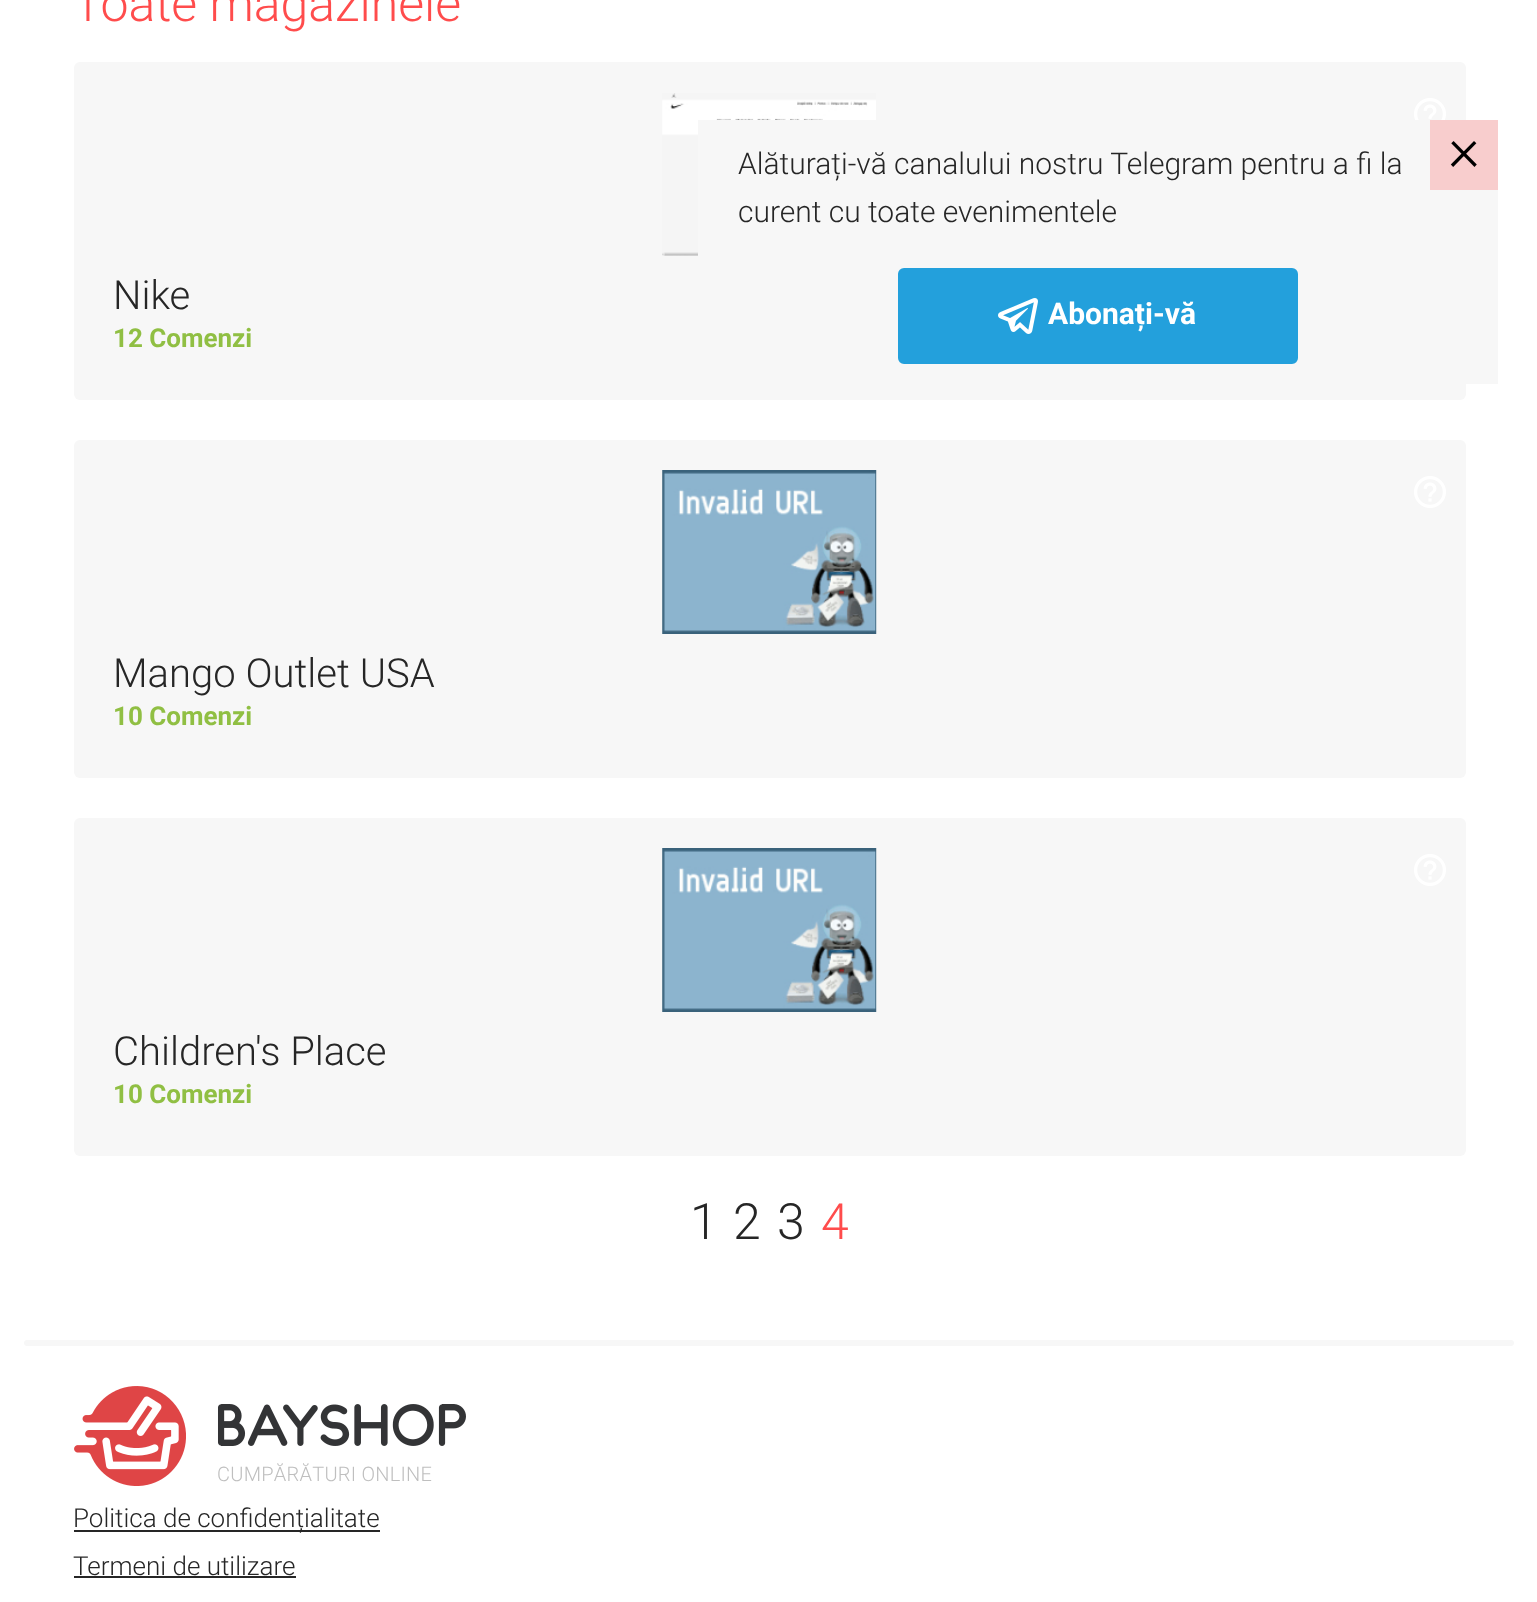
<svg xmlns="http://www.w3.org/2000/svg" width="1537" height="1602">
	<rect width="100%" height="100%" fill="#FFFFFF" />
	<text x="73" y="21" font-family="Roboto" font-size="50" font-weight="300" fill="#FF4C4C">Toate magazinele</text>
	<rect x="74" y="62" width="1392" height="338" rx="6" fill="#F7F7F7" />
	<image x="1414" y="98" width="32" height="22" href="assets/img1.png" />
	<image x="662" y="93" width="214" height="163" href="assets/img2.png" />
	<text x="113" y="309" font-family="Roboto" font-size="40" font-weight="300" fill="#262626">Nike</text>
	<text x="113" y="347" font-family="Roboto" font-size="26" font-weight="700" fill="#90BF43">12 Comenzi</text>
	<rect x="74" y="440" width="1392" height="338" rx="6" fill="#F7F7F7" />
	<image x="1414" y="476" width="32" height="32" href="assets/img3.png" />
	<image x="662" y="470" width="215" height="164" href="assets/img4.png" />
	<text x="113" y="687" font-family="Roboto" font-size="40" font-weight="300" fill="#262626">Mango Outlet USA</text>
	<text x="113" y="725" font-family="Roboto" font-size="26" font-weight="700" fill="#90BF43">10 Comenzi</text>
	<rect x="74" y="818" width="1392" height="338" rx="6" fill="#F7F7F7" />
	<image x="1414" y="854" width="32" height="32" href="assets/img3.png" />
	<image x="662" y="848" width="215" height="164" href="assets/img4.png" />
	<text x="113" y="1065" font-family="Roboto" font-size="40" font-weight="300" fill="#262626">Children's Place</text>
	<text x="113" y="1103" font-family="Roboto" font-size="26" font-weight="700" fill="#90BF43">10 Comenzi</text>
	<g font-family="Roboto" font-size="50" font-weight="300" fill="#262626">
		<text x="690" y="1239">1</text>
		<text x="733" y="1239">2</text>
		<text x="777" y="1239">3</text>
	</g>
	<text x="821" y="1239" font-family="Roboto" font-size="50" font-weight="300" fill="#FF4C4C">4</text>
	<rect x="698" y="120" width="800" height="264" fill="#F7F7F7" />
	<g font-family="Roboto" font-size="30" font-weight="300" fill="#262626">
		<text x="738" y="174">Alăturați-vă canalului nostru Telegram pentru a fi la</text>
		<text x="738" y="222">curent cu toate evenimentele</text>
	</g>
	<rect x="901" y="271" width="394" height="90" rx="3" fill="#23A0DC" stroke="#23A0DC" stroke-width="6" />
	<image x="998" y="298" width="40" height="36" href="assets/img5.png" />
	<text x="1048" y="324" font-family="Roboto" font-size="30" font-weight="700" fill="#FFFFFF">Abonați-vă</text>
	<rect x="1430" y="120" width="68" height="70" fill="#F8CDCD" />
	<text x="1448" y="170" font-family="Roboto" font-size="61" font-weight="300" fill="#000000">×</text>
	<rect x="24" y="1340" width="1490" height="6" rx="3" fill="#F7F7F7" />
	<image x="74" y="1386" width="392" height="100" href="assets/img6.png" />
	<text x="217" y="1481" font-family="Roboto" font-size="20" font-weight="300" letter-spacing="0.25" fill="#BFBFBF">CUMPĂRĂTURI ONLINE</text>
	<rect x="74" y="1530" width="306" height="2" fill="#262626" />
	<g font-family="Roboto" font-size="26" font-weight="300" fill="#262626">
		<text x="73" y="1527">Politica de confidențialitate</text>
		<text x="73" y="1575">Termeni de utilizare</text>
	</g>
	<rect x="74" y="1576" width="222" height="2" fill="#262626" />
</svg>
